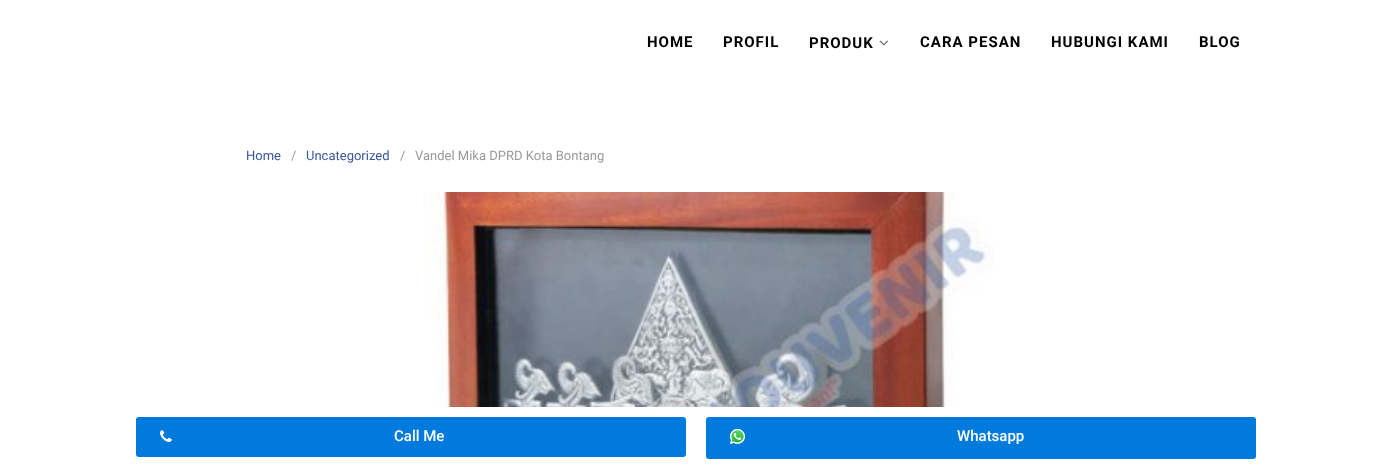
<svg xmlns="http://www.w3.org/2000/svg" width="1392" height="469">
	<rect width="100%" height="100%" fill="#FFFFFF" />
	<g font-family="Roboto" font-size="15" font-weight="700" letter-spacing="1" fill="#000000">
		<text x="647" y="47">HOME</text>
		<text x="723" y="47">PROFIL</text>
		<text x="809" y="48">PRODUK</text>
	</g>
	<image x="879" y="40" width="9" height="6" href="assets/img1.png" />
	<g font-family="Roboto" font-size="15" font-weight="700" letter-spacing="1" fill="#000000">
		<text x="920" y="47">CARA PESAN</text>
		<text x="1051" y="47">HUBUNGI KAMI</text>
		<text x="1199" y="47">BLOG</text>
	</g>
	<text x="246" y="160" font-family="Roboto" font-size="13" fill="#365899">Home</text>
	<text x="291" y="160" font-family="Roboto" font-size="13" fill="#999999">/</text>
	<text x="306" y="160" font-family="Roboto" font-size="13" fill="#365899">Uncategorized</text>
	<g font-family="Roboto" font-size="13" fill="#999999">
		<text x="400" y="160">/</text>
		<text x="415" y="160">Vandel Mika DPRD Kota Bontang</text>
	</g>
	<image x="423" y="192" width="571" height="215" href="assets/img2.png" />
	<rect x="136" y="417" width="550" height="40" rx="3" fill="#007ADD" />
	<image x="160" y="430" width="12" height="12" href="assets/img3.png" />
	<text x="394" y="441" font-family="Roboto" font-size="15" font-weight="500" fill="#FFFFFF">Call Me</text>
	<rect x="706" y="417" width="550" height="42" rx="3" fill="#007ADD" />
	<image x="730" y="429" width="15" height="15" href="assets/img4.png" />
	<text x="957" y="441" font-family="Roboto" font-size="15" font-weight="500" fill="#FFFFFF">Whatsapp</text>
</svg>
